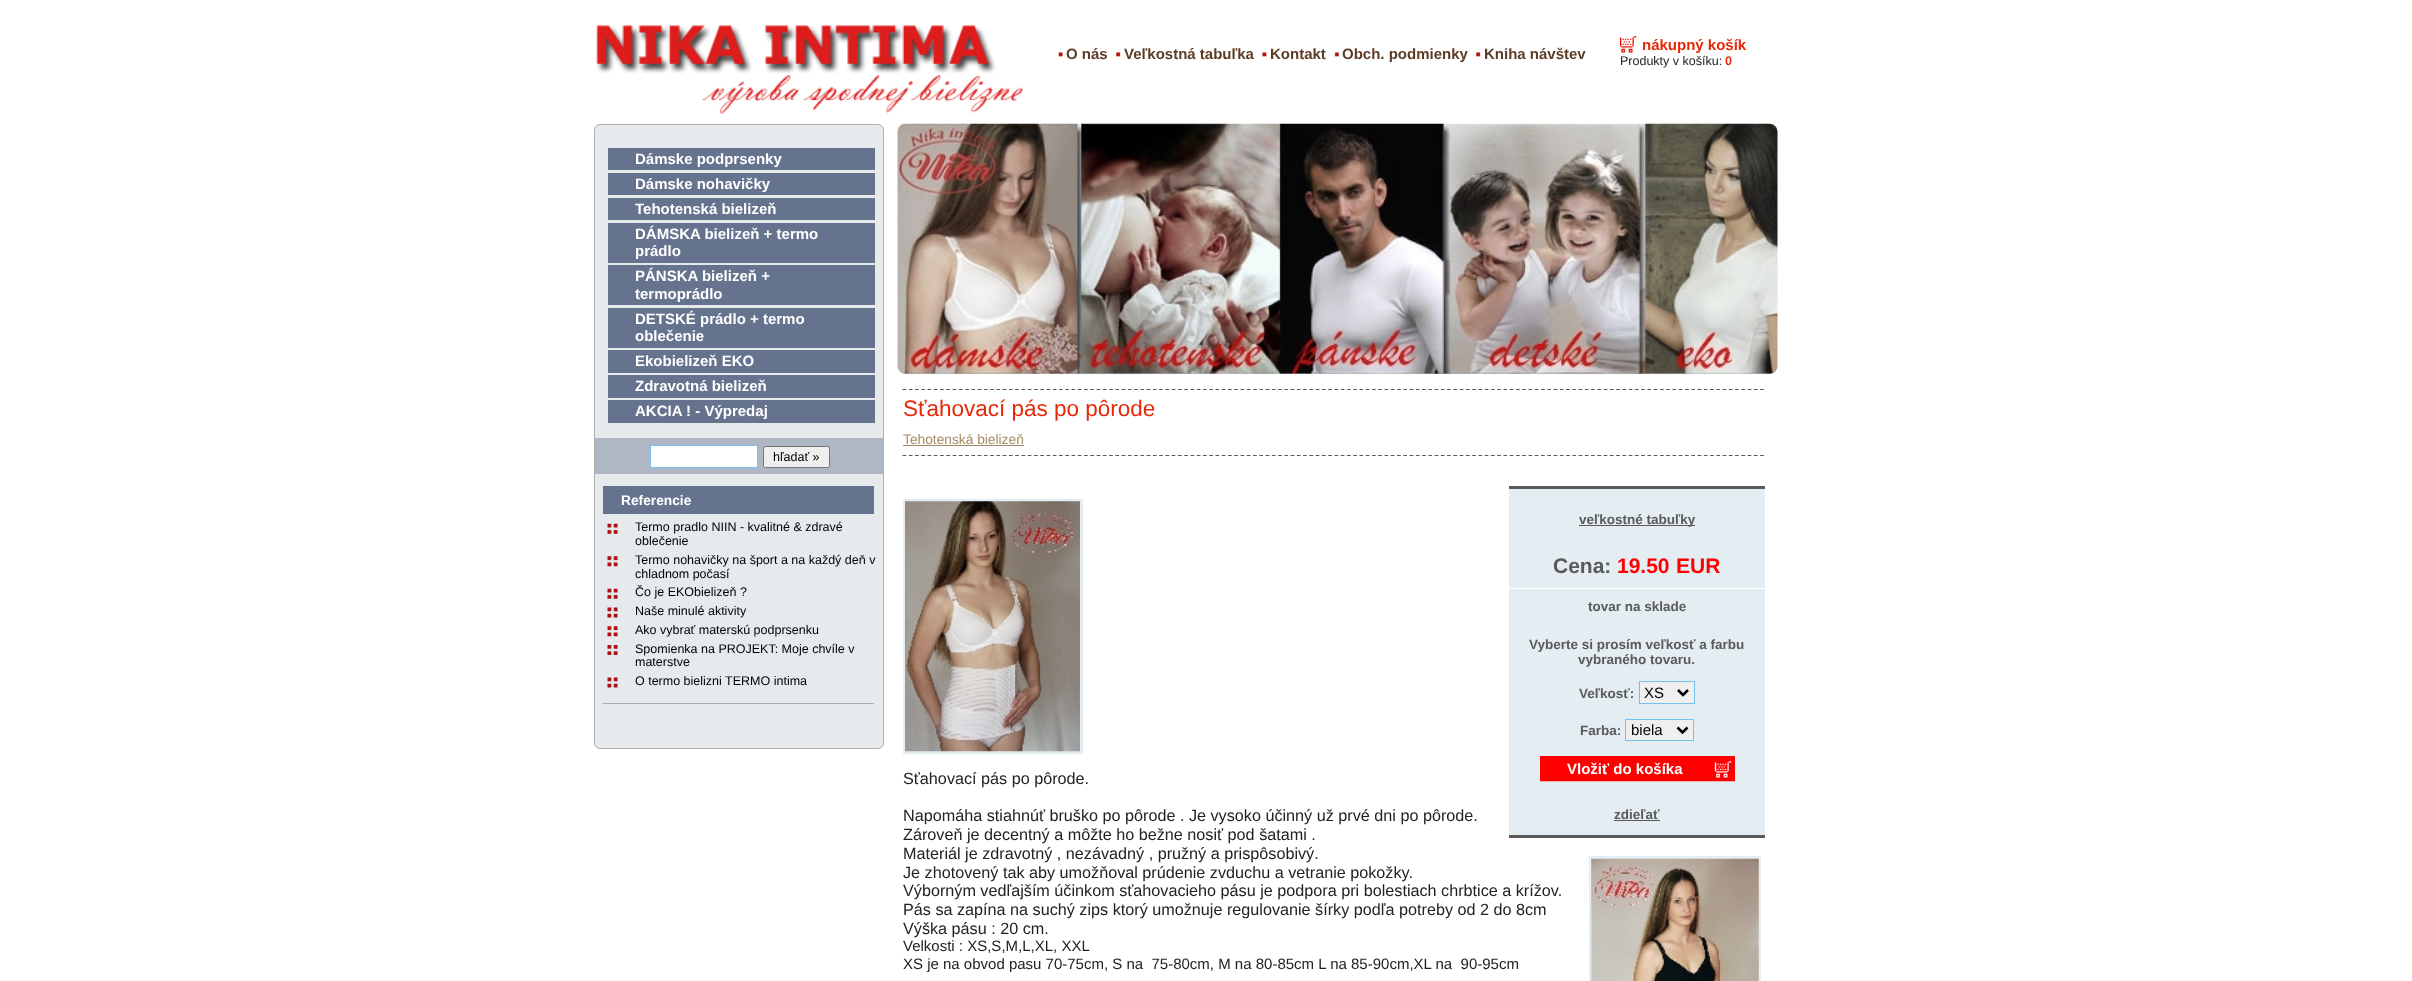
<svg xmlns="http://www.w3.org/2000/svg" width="2412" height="981">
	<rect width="100%" height="100%" fill="#FFFFFF" />
	<image x="596" y="24" width="427" height="90" href="assets/img1.png" />
	<image x="1058" y="51" width="6" height="6" href="assets/img2.png" />
	<text x="1066" y="59" font-family="Liberation Sans" font-size="15" font-weight="700" fill="#5C3C25">O nás</text>
	<image x="1115" y="51" width="6" height="6" href="assets/img3.png" />
	<text x="1124" y="59" font-family="Liberation Sans" font-size="15" font-weight="700" fill="#5C3C25">Veľkostná tabuľka</text>
	<image x="1261" y="51" width="6" height="6" href="assets/img4.png" />
	<text x="1270" y="59" font-family="Liberation Sans" font-size="15" font-weight="700" fill="#5C3C25">Kontakt</text>
	<image x="1334" y="51" width="6" height="6" href="assets/img5.png" />
	<text x="1342" y="59" font-family="Liberation Sans" font-size="15" font-weight="700" fill="#5C3C25">Obch. podmienky</text>
	<image x="1475" y="51" width="6" height="6" href="assets/img3.png" />
	<text x="1484" y="59" font-family="Liberation Sans" font-size="15" font-weight="700" fill="#5C3C25">Kniha návštev</text>
	<image x="1620" y="36" width="17" height="17" href="assets/img6.png" />
	<text x="1642" y="50" font-family="Liberation Sans" font-size="15" font-weight="700" fill="#E62808">nákupný košík</text>
	<text x="1620" y="65" font-family="Liberation Sans" font-size="12.5" fill="#222222">Produkty v košíku:</text>
	<text x="1725" y="65" font-family="Liberation Sans" font-size="12.5" font-weight="700" fill="#E62808">0</text>
	<image x="897" y="123" width="881" height="251" href="assets/img7.png" />
	<rect x="594.5" y="124.5" width="289" height="624" rx="5.5" fill="#E7EAED" stroke="#AEAEAE" />
	<rect x="608" y="148" width="267" height="22" fill="#66738E" />
	<text x="635" y="164" font-family="Liberation Sans" font-size="15" font-weight="700" fill="#FFFFFF">Dámske podprsenky</text>
	<rect x="608" y="173" width="267" height="22" fill="#66738E" />
	<text x="635" y="189" font-family="Liberation Sans" font-size="15" font-weight="700" fill="#FFFFFF">Dámske nohavičky</text>
	<rect x="608" y="198" width="267" height="22" fill="#66738E" />
	<text x="635" y="214" font-family="Liberation Sans" font-size="15" font-weight="700" fill="#FFFFFF">Tehotenská bielizeň</text>
	<rect x="608" y="223" width="267" height="40" fill="#66738E" />
	<g font-family="Liberation Sans" font-size="15" font-weight="700" fill="#FFFFFF">
		<text x="635" y="239">DÁMSKA bielizeň + termo</text>
		<text x="635" y="256">prádlo</text>
	</g>
	<rect x="608" y="265" width="267" height="40" fill="#66738E" />
	<g font-family="Liberation Sans" font-size="15" font-weight="700" fill="#FFFFFF">
		<text x="635" y="281">PÁNSKA bielizeň +</text>
		<text x="635" y="299">termoprádlo</text>
	</g>
	<rect x="608" y="308" width="267" height="40" fill="#66738E" />
	<g font-family="Liberation Sans" font-size="15" font-weight="700" fill="#FFFFFF">
		<text x="635" y="324">DETSKÉ prádlo + termo</text>
		<text x="635" y="341">oblečenie</text>
	</g>
	<rect x="608" y="350" width="267" height="23" fill="#66738E" />
	<text x="635" y="366" font-family="Liberation Sans" font-size="15" font-weight="700" fill="#FFFFFF">Ekobielizeň EKO</text>
	<rect x="608" y="375" width="267" height="23" fill="#66738E" />
	<text x="635" y="391" font-family="Liberation Sans" font-size="15" font-weight="700" fill="#FFFFFF">Zdravotná bielizeň</text>
	<rect x="608" y="400" width="267" height="23" fill="#66738E" />
	<text x="635" y="416" font-family="Liberation Sans" font-size="15" font-weight="700" fill="#FFFFFF">AKCIA ! - Výpredaj</text>
	<rect x="595" y="438" width="288" height="36" fill="#AFB7C4" />
	<rect x="650.5" y="445.5" width="107" height="22" fill="#FFFFFF" stroke="#74C3EE" />
	<rect x="763.5" y="446.5" width="66" height="21" rx="2" fill="#EFEFEF" stroke="#767676" />
	<text x="773" y="461" font-family="Liberation Sans" font-size="12.5" fill="#000000">hľadať »</text>
	<rect x="603" y="486" width="271" height="28" fill="#66738E" />
	<text x="621" y="505" font-family="Liberation Sans" font-size="13.75" font-weight="700" fill="#FFFFFF">Referencie</text>
	<image x="607" y="523" width="11" height="11" href="assets/img8.png" />
	<g font-family="Liberation Sans" font-size="12.5" fill="#000000">
		<text x="635" y="531">Termo pradlo NIIN - kvalitné &amp; zdravé</text>
		<text x="635" y="545">oblečenie</text>
	</g>
	<image x="607" y="556" width="11" height="11" href="assets/img9.png" />
	<g font-family="Liberation Sans" font-size="12.5" fill="#000000">
		<text x="635" y="564">Termo nohavičky na šport a na každý deň v</text>
		<text x="635" y="578">chladnom počasí</text>
	</g>
	<image x="607" y="588" width="11" height="11" href="assets/img8.png" />
	<text x="635" y="596" font-family="Liberation Sans" font-size="12.5" fill="#000000">Čo je EKObielizeň ?</text>
	<image x="607" y="607" width="11" height="11" href="assets/img10.png" />
	<text x="635" y="615" font-family="Liberation Sans" font-size="12.5" fill="#000000">Naše minulé aktivity</text>
	<image x="607" y="626" width="11" height="11" href="assets/img9.png" />
	<text x="635" y="634" font-family="Liberation Sans" font-size="12.5" fill="#000000">Ako vybrať materskú podprsenku</text>
	<image x="607" y="645" width="11" height="10" href="assets/img11.png" />
	<g font-family="Liberation Sans" font-size="12.5" fill="#000000">
		<text x="635" y="653">Spomienka na PROJEKT: Moje chvíle v</text>
		<text x="635" y="666">materstve</text>
	</g>
	<image x="607" y="677" width="11" height="11" href="assets/img10.png" />
	<text x="635" y="685" font-family="Liberation Sans" font-size="12.5" fill="#000000">O termo bielizni TERMO intima</text>
	<rect x="603" y="703" width="271" height="1" fill="#AEAEAE" />
	<path d="M902.5 389.5H1765" fill="none" stroke="#5A5A5A" stroke-width="1.2" stroke-dasharray="3.75 2.51" />
	<text x="903" y="416" font-family="Liberation Sans" font-size="22.5" fill="#E62808">Sťahovací pás po pôrode</text>
	<path d="M902.5 455.5H1765" fill="none" stroke="#5A5A5A" stroke-width="1.2" stroke-dasharray="3.75 2.51" />
	<text x="903" y="444" font-family="Liberation Sans" font-size="13.75" fill="#A78B65">Tehotenská bielizeň</text>
	<rect x="903" y="445" width="121" height="1" fill="#A78B65" />
	<rect x="904.5" y="500.5" width="177" height="252" fill="none" stroke="#E3EDF2" stroke-width="3" />
	<image x="905" y="501" width="175" height="251" href="assets/img12.png" />
	<rect x="1509" y="489" width="256" height="346" fill="#E3EDF2" />
	<rect x="1509" y="486" width="256" height="3" fill="#5A5A5A" />
	<rect x="1509" y="835" width="256" height="3" fill="#5A5A5A" />
	<rect x="1579" y="525" width="116" height="1" fill="#5A5A5A" />
	<text x="1579" y="524" font-family="Liberation Sans" font-size="13.5" font-weight="700" fill="#5A5A5A">veľkostné tabuľky</text>
	<rect x="1509" y="588" width="256" height="1" fill="#FFFFFF" />
	<text x="1553" y="573" font-family="Liberation Sans" font-size="21" font-weight="700" fill="#5A5A5A">Cena:</text>
	<g font-family="Liberation Sans" font-size="21" font-weight="700" fill="#FF0000">
		<text x="1617" y="573">19.50</text>
		<text x="1676" y="573">EUR</text>
	</g>
	<g font-family="Liberation Sans" font-size="13.5" font-weight="700" fill="#5A5A5A">
		<text x="1588" y="611">tovar na sklade</text>
		<text x="1529" y="649">Vyberte si prosím veľkosť a farbu</text>
		<text x="1578" y="664">vybraného tovaru.</text>
		<text x="1579" y="698">Veľkosť:</text>
	</g>
	<rect x="1639.5" y="681.5" width="55" height="22" fill="#EFEFEF" stroke="#74C3EE" />
	<path d="M1678 690L1683 695L1688 690" fill="none" stroke="#000000" stroke-width="2.5" />
	<text x="1644" y="698" font-family="Liberation Sans" font-size="15" fill="#000000">XS</text>
	<text x="1580" y="735" font-family="Liberation Sans" font-size="13.5" font-weight="700" fill="#5A5A5A">Farba:</text>
	<rect x="1625.5" y="719.5" width="68" height="21" fill="#EFEFEF" stroke="#74C3EE" />
	<path d="M1677.5 727.5L1682.5 732.5L1687.5 727.5" fill="none" stroke="#000000" stroke-width="2.5" />
	<text x="1631" y="735" font-family="Liberation Sans" font-size="15" fill="#000000">biela</text>
	<image x="1540" y="757" width="195" height="25" href="assets/img13.png" />
	<rect x="1540.5" y="756.5" width="194" height="24" fill="none" stroke="#FF0000" />
	<text x="1567" y="774" font-family="Liberation Sans" font-size="15" font-weight="700" fill="#FFFFFF">Vložiť do košíka</text>
	<text x="1614" y="819" font-family="Liberation Sans" font-size="13.5" font-weight="700" fill="#5A5A5A">zdieľať</text>
	<rect x="1614" y="820" width="46" height="1" fill="#5A5A5A" />
	<g font-family="Liberation Sans" font-size="16.2" fill="#222222">
		<text x="903" y="784">Sťahovací pás po pôrode.</text>
		<text x="903" y="821">Napomáha stiahnúť bruško po pôrode . Je vysoko účinný už prvé dni po pôrode.</text>
		<text x="903" y="840">Zároveň je decentný a môžte ho bežne nosiť pod šatami .</text>
		<text x="903" y="859">Materiál je zdravotný , nezávadný , pružný a prispôsobivý.</text>
		<text x="903" y="878">Je zhotovený tak aby umožňoval prúdenie zvduchu a vetranie pokožky.</text>
		<text x="903" y="896">Výborným vedľajším účinkom sťahovacieho pásu je podpora pri bolestiach chrbtice a krížov.</text>
		<text x="903" y="915">Pás sa zapína na suchý zips ktorý umožnuje regulovanie šírky podľa potreby od 2 do 8cm</text>
		<text x="903" y="934">Výška pásu : 20 cm.</text>
	</g>
	<g font-family="Liberation Sans" font-size="15" fill="#222222">
		<text x="903" y="951">Velkosti : XS,S,M,L,XL, XXL</text>
		<text x="903" y="969" xml:space="preserve">XS je na obvod pasu 70-75cm, S na  75-80cm, M na 80-85cm L na 85-90cm,XL na  90-95cm</text>
	</g>
	<rect x="1590.5" y="857.5" width="169" height="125" fill="none" stroke="#E3EDF2" stroke-width="3" />
	<image x="1591" y="858" width="168" height="123" href="assets/img14.png" />
</svg>
